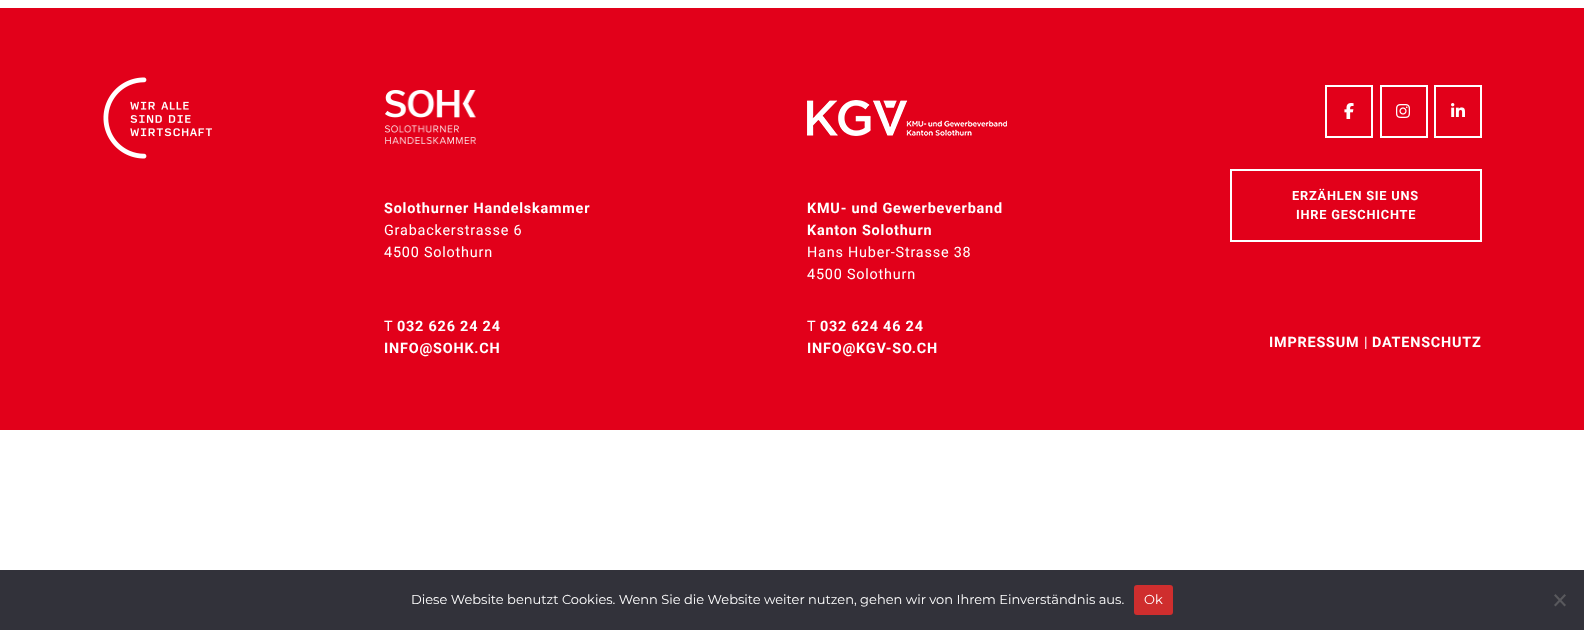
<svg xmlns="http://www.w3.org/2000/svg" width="1584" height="630">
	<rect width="100%" height="100%" fill="#FFFFFF" />
	<rect x="0" y="8" width="1584" height="422" fill="#E2001A" />
	<image x="103" y="77" width="109" height="82" href="assets/img1.png" />
	<image x="385" y="90" width="91" height="54" href="assets/img2.png" />
	<text x="384" y="213" font-family="Roboto" font-size="14.4" font-weight="700" letter-spacing="0.8" fill="#FFFFFF">Solothurner Handelskammer</text>
	<g font-family="Roboto" font-size="14.4" letter-spacing="0.8" fill="#FFFFFF">
		<text x="384" y="235">Grabackerstrasse 6</text>
		<text x="384" y="257">4500 Solothurn</text>
		<text x="384" y="331">T</text>
	</g>
	<g font-family="Roboto" font-size="14.4" font-weight="700" letter-spacing="0.8" fill="#FFFFFF">
		<text x="397" y="331">032 626 24 24</text>
		<text x="384" y="353">INFO@SOHK.CH</text>
	</g>
	<image x="807" y="100" width="200" height="36" href="assets/img3.png" />
	<g font-family="Roboto" font-size="14.4" font-weight="700" letter-spacing="0.8" fill="#FFFFFF">
		<text x="807" y="213">KMU- und Gewerbeverband</text>
		<text x="807" y="235">Kanton Solothurn</text>
	</g>
	<g font-family="Roboto" font-size="14.4" letter-spacing="0.8" fill="#FFFFFF">
		<text x="807" y="257">Hans Huber-Strasse 38</text>
		<text x="807" y="279">4500 Solothurn</text>
		<text x="807" y="331">T</text>
	</g>
	<g font-family="Roboto" font-size="14.4" font-weight="700" letter-spacing="0.8" fill="#FFFFFF">
		<text x="820" y="331">032 624 46 24</text>
		<text x="807" y="353">INFO@KGV-SO.CH</text>
	</g>
	<rect x="1326" y="86" width="46" height="51" fill="none" stroke="#FFFFFF" stroke-width="2" />
	<image x="1344" y="103" width="10" height="16" href="assets/img4.png" />
	<rect x="1381" y="86" width="46" height="51" fill="none" stroke="#FFFFFF" stroke-width="2" />
	<image x="1396" y="104" width="14" height="14" href="assets/img5.png" />
	<rect x="1435" y="86" width="46" height="51" fill="none" stroke="#FFFFFF" stroke-width="2" />
	<image x="1451" y="103" width="14" height="14" href="assets/img6.png" />
	<rect x="1231" y="170" width="250" height="71" fill="none" stroke="#FFFFFF" stroke-width="2" />
	<g font-family="Roboto" font-size="12.75" font-weight="700" letter-spacing="0.8" fill="#FFFFFF">
		<text x="1292" y="200">ERZÄHLEN SIE UNS</text>
		<text x="1296" y="219">IHRE GESCHICHTE</text>
	</g>
	<text x="1269" y="347" font-family="Roboto" font-size="14.4" font-weight="700" letter-spacing="0.8" fill="#FFFFFF">IMPRESSUM</text>
	<text x="1364" y="347" font-family="Roboto" font-size="14.4" letter-spacing="0.8" fill="#FFFFFF">|</text>
	<text x="1372" y="347" font-family="Roboto" font-size="14.4" font-weight="700" letter-spacing="0.8" fill="#FFFFFF">DATENSCHUTZ</text>
	<rect x="0" y="570" width="1584" height="60" fill="#32323A" />
	<text x="411" y="604" font-family="Montserrat" font-size="13" fill="#FFFFFF">Diese Website benutzt Cookies. Wenn Sie die Website weiter nutzen, gehen wir von Ihrem Einverständnis aus.</text>
	<rect x="1134" y="585" width="39" height="30" rx="3" fill="#CF2E2E" />
	<text x="1144" y="604" font-family="Montserrat" font-size="13" fill="#FFFFFF">Ok</text>
	<path d="M1564.5 594L1566 595.5L1555.5 606.5L1554 605Z" fill="#59595D" />
	<path d="M1554 595.5L1555.5 594L1566 605L1564.5 606.5Z" fill="#59595D" />
</svg>
